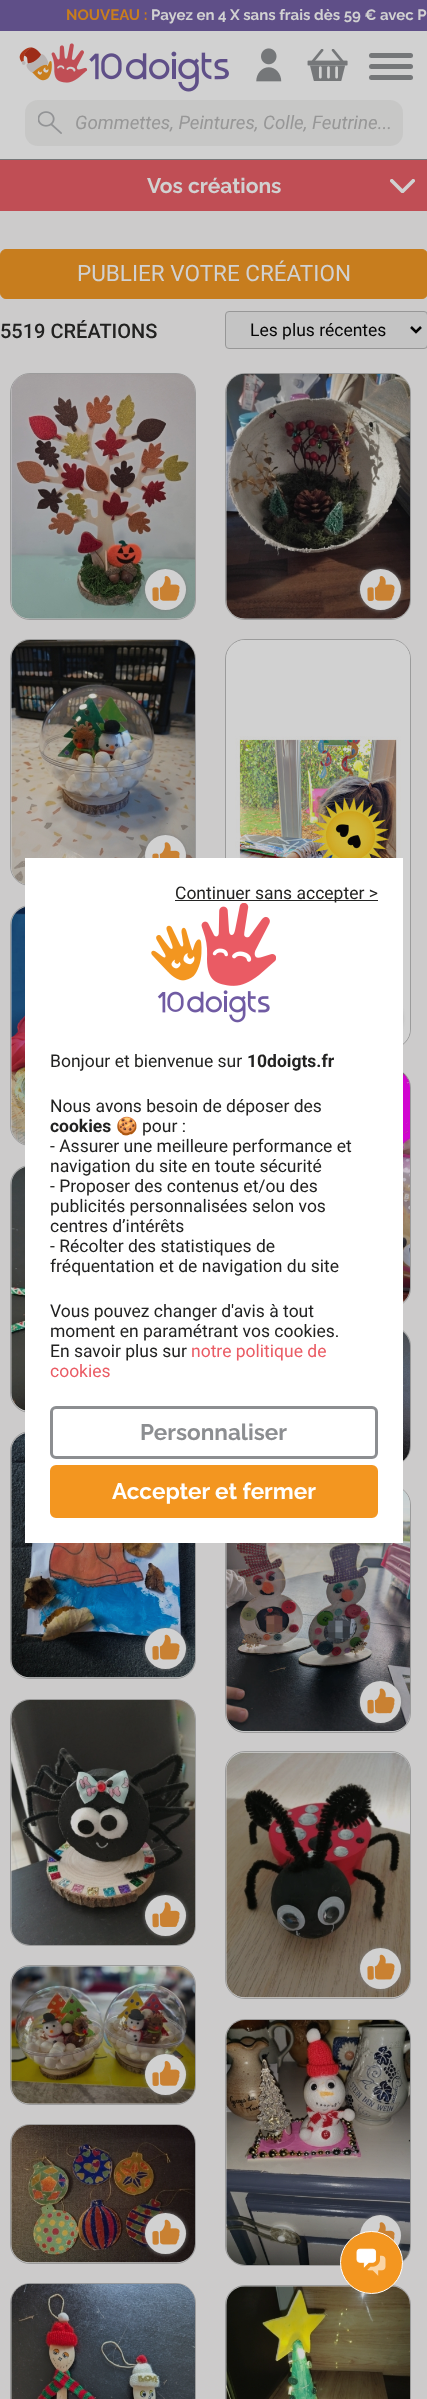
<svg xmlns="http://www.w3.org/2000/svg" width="427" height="2399">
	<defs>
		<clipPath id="clip1"><rect x="390" y="179" width="25" height="14" /></clipPath>
	</defs>
	<rect width="100%" height="100%" fill="#CCCBCB" />
	<rect x="0" y="31" width="427" height="128" fill="#D1D1D1" />
	<rect x="0" y="0" width="427" height="31" fill="#5F4F88" />
	<text x="66" y="20" font-family="Raleway" font-size="15" font-weight="700" fill="#C77D1E">NOUVEAU :</text>
	<text x="151" y="20" font-family="Raleway" font-size="15" font-weight="700" fill="#D1D1D1">Payez en 4 X sans frais dès 59 € avec P</text>
	<rect x="0" y="159" width="427" height="1" fill="#757779" />
	<image x="19" y="43" width="210" height="49" href="assets/img1.png" />
	<image x="256" y="48" width="26" height="34" href="assets/img2.png" />
	<image x="307" y="49" width="41" height="32" href="assets/img3.png" />
	<rect x="369" y="53" width="44" height="5" rx="2.5" fill="#757779" />
	<rect x="369" y="64" width="44" height="5" rx="2.5" fill="#757779" />
	<rect x="369" y="75" width="44" height="5" rx="2.5" fill="#757779" />
	<rect x="25" y="100" width="378" height="46" rx="13" fill="#C7C7C6" />
	<image x="38" y="111" width="24" height="23" href="assets/img4.png" />
	<text x="75" y="129" font-family="Roboto" font-size="18.75" font-style="italic" fill="#979797">Gommettes, Peintures, Colle, Feutrine...</text>
	<rect x="0" y="160" width="427" height="51" fill="#C04E55" />
	<text x="147" y="193" font-family="Raleway" font-size="21" font-weight="700" fill="#D1D1D1">Vos créations</text>
	<g clip-path="url(#clip1)">
		<path d="M414.5 179.5L402.5 191.5L390.5 179.5" fill="none" stroke="#D1D1D1" stroke-width="3.6" />
	</g>
	<rect x="0.5" y="249.5" width="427" height="49" rx="5.5" fill="#C77D1E" stroke="#C77D1E" />
	<text x="77" y="281" font-family="Roboto" font-size="22.5" fill="#D1D1D1">PUBLIER VOTRE CRÉATION</text>
	<text x="0" y="338" font-family="Roboto" font-size="20" font-weight="500" fill="#222221">5519 CRÉATIONS</text>
	<rect x="225.5" y="311.5" width="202" height="37" rx="3.5" fill="#C4C4C4" stroke="#979797" />
	<path d="M411 327L416 332L421 327" fill="none" stroke="#050505" stroke-width="2.5" />
	<text x="250" y="336" font-family="Roboto" font-size="17.5" fill="#050505">Les plus récentes</text>
	<rect x="10.5" y="373.5" width="185" height="246" rx="19.5" fill="#D1D1D1" stroke="#9B9B9B" />
	<image x="11" y="374" width="184" height="245" href="assets/img5.png" />
	<rect x="145" y="569" width="41" height="41" rx="20.5" fill="#7F7F7F" filter="blur(2px)" />
	<circle cx="165.5" cy="589.5" r="20.5" fill="#D1D1D1" />
	<image x="152" y="576" width="28" height="25" href="assets/img6.png" />
	<rect x="225.5" y="373.5" width="185" height="246" rx="19.5" fill="#D1D1D1" stroke="#9B9B9B" />
	<image x="226" y="373" width="184" height="246" href="assets/img7.png" />
	<rect x="360" y="569" width="41" height="41" rx="20.5" fill="#7F7F7F" filter="blur(2px)" />
	<circle cx="380.5" cy="589.5" r="20.5" fill="#D1D1D1" />
	<image x="367" y="576" width="28" height="25" href="assets/img6.png" />
	<rect x="10.5" y="639.5" width="185" height="246" rx="19.5" fill="#D1D1D1" stroke="#9B9B9B" />
	<image x="11" y="640" width="184" height="244" href="assets/img8.png" />
	<rect x="145" y="835" width="41" height="41" rx="20.5" fill="#7F7F7F" filter="blur(2px)" />
	<circle cx="165.5" cy="855.5" r="20.5" fill="#D1D1D1" />
	<image x="152" y="842" width="28" height="16" href="assets/img9.png" />
	<rect x="225.5" y="639.5" width="185" height="409" rx="19.5" fill="#D1D1D1" stroke="#9B9B9B" />
	<image x="226" y="640" width="184" height="404" href="assets/img10.png" />
	<rect x="360" y="998" width="41" height="41" rx="20.5" fill="#7F7F7F" filter="blur(2px)" />
	<rect x="10.5" y="905.5" width="185" height="240" rx="19.5" fill="#D1D1D1" stroke="#9B9B9B" />
	<image x="11" y="907" width="14" height="237" href="assets/img11.png" />
	<rect x="10.5" y="1165.5" width="185" height="247" rx="19.5" fill="#D1D1D1" stroke="#9B9B9B" />
	<image x="11" y="1167" width="14" height="244" href="assets/img12.png" />
	<rect x="225.5" y="1068.5" width="185" height="239" rx="19.5" fill="#D1D1D1" stroke="#9B9B9B" />
	<image x="403" y="1073" width="7" height="229" href="assets/img13.png" />
	<rect x="360" y="1256" width="41" height="42" rx="20.5" fill="#7F7F7F" filter="blur(2px)" />
	<rect x="225.5" y="1326.5" width="185" height="139" rx="19.5" fill="#D1D1D1" stroke="#9B9B9B" />
	<image x="403" y="1331" width="7" height="130" href="assets/img14.png" />
	<rect x="360" y="1415" width="41" height="41" rx="20.5" fill="#7F7F7F" filter="blur(2px)" />
	<rect x="10.5" y="1431.5" width="185" height="247" rx="19.5" fill="#D1D1D1" stroke="#9B9B9B" />
	<image x="11" y="1433" width="184" height="245" href="assets/img15.png" />
	<rect x="145" y="1628" width="41" height="41" rx="20.5" fill="#7F7F7F" filter="blur(2px)" />
	<circle cx="165.5" cy="1648.5" r="20.5" fill="#D1D1D1" />
	<image x="152" y="1634" width="28" height="26" href="assets/img16.png" />
	<rect x="225.5" y="1485.5" width="185" height="247" rx="19.5" fill="#D1D1D1" stroke="#9B9B9B" />
	<image x="226" y="1490" width="184" height="242" href="assets/img17.png" />
	<rect x="360" y="1681" width="41" height="42" rx="20.5" fill="#7F7F7F" filter="blur(2px)" />
	<rect x="360" y="1681" width="41" height="42" rx="20.5" fill="#D1D1D1" />
	<image x="367" y="1688" width="28" height="26" href="assets/img18.png" />
	<rect x="10.5" y="1699.5" width="185" height="246" rx="19.5" fill="#D1D1D1" stroke="#9B9B9B" />
	<image x="11" y="1700" width="184" height="245" href="assets/img19.png" />
	<rect x="145" y="1895" width="41" height="41" rx="20.5" fill="#7F7F7F" filter="blur(2px)" />
	<circle cx="165.5" cy="1915.5" r="20.5" fill="#D1D1D1" />
	<image x="152" y="1902" width="28" height="26" href="assets/img20.png" />
	<rect x="225.5" y="1751.5" width="185" height="247" rx="19.5" fill="#D1D1D1" stroke="#9B9B9B" />
	<image x="226" y="1752" width="184" height="246" href="assets/img21.png" />
	<rect x="360" y="1948" width="41" height="41" rx="20.5" fill="#7F7F7F" filter="blur(2px)" />
	<circle cx="380.5" cy="1968.5" r="20.5" fill="#D1D1D1" />
	<image x="367" y="1954" width="28" height="26" href="assets/img16.png" />
	<rect x="10.5" y="1965.5" width="185" height="139" rx="19.5" fill="#D1D1D1" stroke="#9B9B9B" />
	<image x="11" y="1966" width="184" height="138" href="assets/img22.png" />
	<rect x="145" y="2054" width="41" height="41" rx="20.5" fill="#7F7F7F" filter="blur(2px)" />
	<circle cx="165.5" cy="2074.5" r="20.5" fill="#D1D1D1" />
	<image x="152" y="2061" width="28" height="25" href="assets/img6.png" />
	<rect x="225.5" y="2019.5" width="185" height="246" rx="19.5" fill="#D1D1D1" stroke="#9B9B9B" />
	<image x="226" y="2020" width="184" height="245" href="assets/img23.png" />
	<rect x="360" y="2215" width="41" height="41" rx="20.5" fill="#7F7F7F" filter="blur(2px)" />
	<circle cx="380.5" cy="2235.5" r="20.5" fill="#D1D1D1" />
	<image x="377" y="2222" width="18" height="19" href="assets/img24.png" />
	<rect x="10.5" y="2124.5" width="185" height="139" rx="19.5" fill="#D1D1D1" stroke="#9B9B9B" />
	<image x="11" y="2125" width="184" height="138" href="assets/img25.png" />
	<rect x="145" y="2213" width="41" height="41" rx="20.5" fill="#7F7F7F" filter="blur(2px)" />
	<circle cx="165.5" cy="2233.5" r="20.5" fill="#D1D1D1" />
	<image x="152" y="2219" width="28" height="26" href="assets/img16.png" />
	<rect x="10.5" y="2283.5" width="185" height="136" rx="19.5" fill="#D1D1D1" stroke="#9B9B9B" />
	<image x="11" y="2283" width="184" height="116" href="assets/img26.png" />
	<rect x="225.5" y="2285.5" width="185" height="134" rx="19.5" fill="#D1D1D1" stroke="#9B9B9B" />
	<image x="226" y="2286" width="184" height="113" href="assets/img27.png" />
	<rect x="25" y="858" width="378" height="685" fill="#FFFFFF" />
	<rect x="175" y="900" width="203" height="1" fill="#242424" />
	<text x="175" y="899" font-family="Roboto" font-size="17.5" fill="#222221">Continuer sans accepter &gt;</text>
	<image x="151" y="903" width="125" height="120" href="assets/img28.png" />
	<text x="50" y="1067" font-family="Roboto" font-size="17.5" fill="#222221">Bonjour et bienvenue sur</text>
	<text x="247" y="1067" font-family="Roboto" font-size="17.5" font-weight="700" fill="#222221">10doigts.fr</text>
	<text x="50" y="1112" font-family="Roboto" font-size="17.5" fill="#222221">Nous avons besoin de déposer des</text>
	<text x="50" y="1132" font-family="Roboto" font-size="17.5" font-weight="700" fill="#222221">cookies</text>
	<text x="116" y="1132" font-family="Noto Color Emoji" font-size="17.5" fill="#222221">🍪</text>
	<g font-family="Roboto" font-size="17.5" fill="#222221">
		<text x="142" y="1132">pour :</text>
		<text x="50" y="1152">- Assurer une meilleure performance et</text>
		<text x="50" y="1172">navigation du site en toute sécurité</text>
		<text x="50" y="1192">- Proposer des contenus et/ou des</text>
		<text x="50" y="1212">publicités personnalisées selon vos</text>
		<text x="50" y="1232">centres d’intérêts</text>
		<text x="50" y="1252">- Récolter des statistiques de</text>
		<text x="50" y="1272">fréquentation et de navigation du site</text>
		<text x="50" y="1317">Vous pouvez changer d'avis à tout</text>
		<text x="50" y="1337">moment en paramétrant vos cookies.</text>
		<text x="50" y="1357">En savoir plus sur</text>
	</g>
	<g font-family="Roboto" font-size="17.5" fill="#EA5B64">
		<text x="191" y="1357">notre politique de</text>
		<text x="50" y="1377">cookies</text>
	</g>
	<rect x="51.5" y="1407.5" width="325" height="50" rx="4.5" fill="none" stroke="#8C8E91" stroke-width="3" />
	<text x="140" y="1440" font-family="Raleway" font-size="22.5" font-weight="700" fill="#8C8E91">Personnaliser</text>
	<rect x="51.5" y="1466.5" width="325" height="50" rx="4.5" fill="#F39620" stroke="#F39620" stroke-width="3" />
	<text x="112" y="1499" font-family="Raleway" font-size="22.5" font-weight="700" fill="#FFFFFF">Accepter et fermer</text>
	<circle cx="371.5" cy="2262.5" r="31" fill="#F39620" stroke="#FFFFFF" />
	<image x="356" y="2248" width="30" height="28" href="assets/img29.png" />
</svg>
